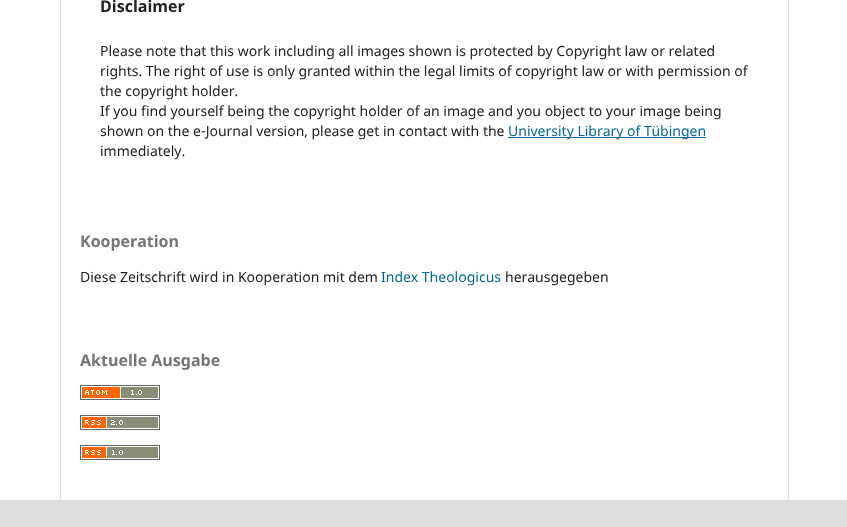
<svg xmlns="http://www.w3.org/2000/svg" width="847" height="527">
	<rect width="100%" height="100%" fill="#FFFFFF" />
	<rect x="60" y="0" width="1" height="500" fill="#DDDDDD" />
	<text x="100" y="12" font-family="Noto Sans" font-size="16" font-weight="700" fill="#212121">Disclaimer</text>
	<g font-family="Noto Sans" font-size="14" fill="#212121">
		<text x="100" y="56">Please note that this work including all images shown is protected by Copyright law or related</text>
		<text x="100" y="76">rights. The right of use is only granted within the legal limits of copyright law or with permission of</text>
		<text x="100" y="96">the copyright holder.</text>
		<text x="100" y="116">If you find yourself being the copyright holder of an image and you object to your image being</text>
		<text x="100" y="136">shown on the e-Journal version, please get in contact with the</text>
	</g>
	<rect x="508" y="137" width="198" height="1" fill="#006798" />
	<text x="508" y="136" font-family="Noto Sans" font-size="14" fill="#006798">University Library of Tübingen</text>
	<text x="100" y="156" font-family="Noto Sans" font-size="14" fill="#212121">immediately.</text>
	<rect x="788" y="0" width="1" height="500" fill="#DDDDDD" />
	<text x="80" y="247" font-family="Noto Sans" font-size="16" font-weight="700" fill="#757575">Kooperation</text>
	<text x="80" y="282" font-family="Noto Sans" font-size="14" fill="#212121">Diese Zeitschrift wird in Kooperation mit dem</text>
	<text x="381" y="282" font-family="Noto Sans" font-size="14" fill="#006798">Index Theologicus</text>
	<text x="505" y="282" font-family="Noto Sans" font-size="14" fill="#212121">herausgegeben</text>
	<text x="80" y="366" font-family="Noto Sans" font-size="16" font-weight="700" fill="#757575">Aktuelle Ausgabe</text>
	<image x="80" y="385" width="80" height="15" href="assets/img1.png" />
	<image x="80" y="415" width="80" height="15" href="assets/img2.png" />
	<image x="80" y="445" width="80" height="15" href="assets/img3.png" />
	<rect x="0" y="500" width="847" height="27" fill="#DDDDDD" />
</svg>
